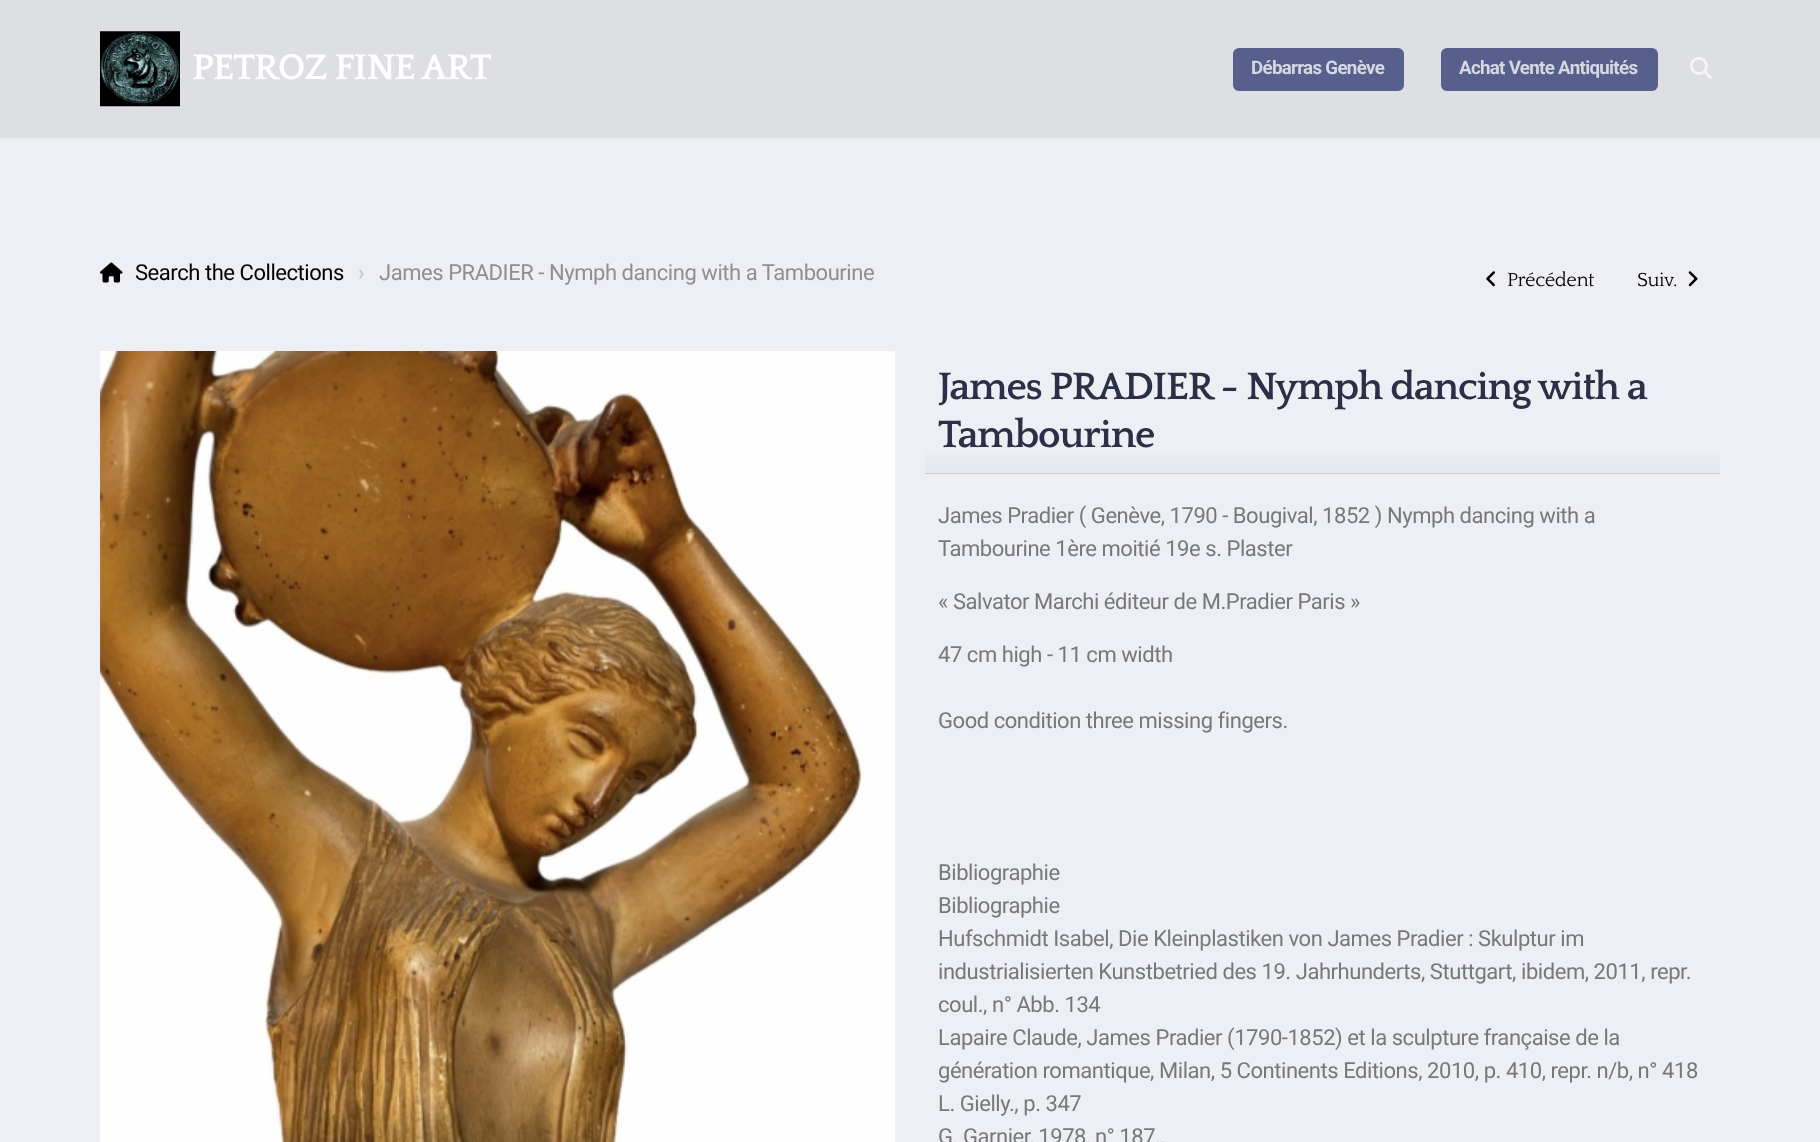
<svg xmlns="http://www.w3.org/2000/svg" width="1820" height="1142">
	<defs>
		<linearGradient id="g1" gradientUnits="userSpaceOnUse" x1="1323" y1="364" x2="1323" y2="473"><stop offset="0.7" stop-color="#EEEFF5" /><stop offset="1" stop-color="#E7E8ED" /></linearGradient>
	</defs>
	<rect width="100%" height="100%" fill="#EEEFF5" />
	<rect x="0" y="0" width="1820" height="138" fill="#DEDFE3" />
	<image x="100" y="31" width="80" height="76" href="assets/img1.png" />
	<text x="192" y="79" font-family="Quattrocento" font-size="37.5" font-weight="700" letter-spacing="-1.1" fill="#FFFFFF">PETROZ FINE ART</text>
	<rect x="1233" y="48" width="171" height="43" rx="6" fill="#575F8C" />
	<text x="1251" y="74" font-family="Roboto" font-size="18.75" font-weight="700" letter-spacing="-0.7" fill="#D5D7E2">Débarras Genève</text>
	<rect x="1441" y="48" width="217" height="43" rx="6" fill="#575F8C" />
	<text x="1459" y="74" font-family="Roboto" font-size="18.75" font-weight="700" letter-spacing="-0.7" fill="#D5D7E2">Achat Vente Antiquités</text>
	<image x="1690" y="57" width="22" height="22" href="assets/img2.png" />
	<image x="100" y="262" width="23" height="21" href="assets/img3.png" />
	<text x="135" y="280" font-family="Roboto" font-size="22" letter-spacing="-0.45" fill="#000000">Search the Collections</text>
	<text x="358" y="280" font-family="Roboto" font-size="22" letter-spacing="-0.45" fill="#BEBFC4">›</text>
	<text x="379" y="280" font-family="Roboto" font-size="22" letter-spacing="-0.45" fill="#8F8F93">James PRADIER - Nymph dancing with a Tambourine</text>
	<image x="1486" y="271" width="9" height="16" href="assets/img4.png" />
	<g font-family="Quattrocento" font-size="20" letter-spacing="-0.45" fill="#000000">
		<text x="1507" y="286">Précédent</text>
		<text x="1637" y="286">Suiv.</text>
	</g>
	<image x="1688" y="271" width="10" height="16" href="assets/img5.png" />
	<image x="100" y="351" width="795" height="791" href="assets/img6.png" />
	<rect x="925" y="451" width="795" height="22" fill="url(#g1)" />
	<rect x="925" y="473" width="795" height="1" fill="#D1CDCD" />
	<g font-family="Quattrocento" font-size="40" font-weight="700" letter-spacing="-1.2" fill="#2C3046">
		<text x="938" y="399">James PRADIER - Nymph dancing with a</text>
		<text x="938" y="447">Tambourine</text>
	</g>
	<g font-family="Roboto" font-size="22" letter-spacing="-0.45" fill="#77787B">
		<text x="938" y="523">James Pradier ( Genève, 1790 - Bougival, 1852 ) Nymph dancing with a</text>
		<text x="938" y="556">Tambourine 1ère moitié 19e s. Plaster</text>
		<text x="938" y="609">« Salvator Marchi éditeur de M.Pradier Paris »</text>
		<text x="938" y="662">47 cm high - 11 cm width</text>
		<text x="938" y="728">Good condition three missing fingers.</text>
		<text x="938" y="880">Bibliographie</text>
		<text x="938" y="913">Bibliographie</text>
		<text x="938" y="946">Hufschmidt Isabel, Die Kleinplastiken von James Pradier : Skulptur im</text>
		<text x="938" y="979">industrialisierten Kunstbetried des 19. Jahrhunderts, Stuttgart, ibidem, 2011, repr.</text>
		<text x="938" y="1012">coul., n° Abb. 134</text>
		<text x="938" y="1045">Lapaire Claude, James Pradier (1790-1852) et la sculpture française de la</text>
		<text x="938" y="1078">génération romantique, Milan, 5 Continents Editions, 2010, p. 410, repr. n/b, n° 418</text>
		<text x="938" y="1111">L. Gielly., p. 347</text>
		<text x="938" y="1144">G. Garnier, 1978, n° 187.,</text>
	</g>
</svg>
